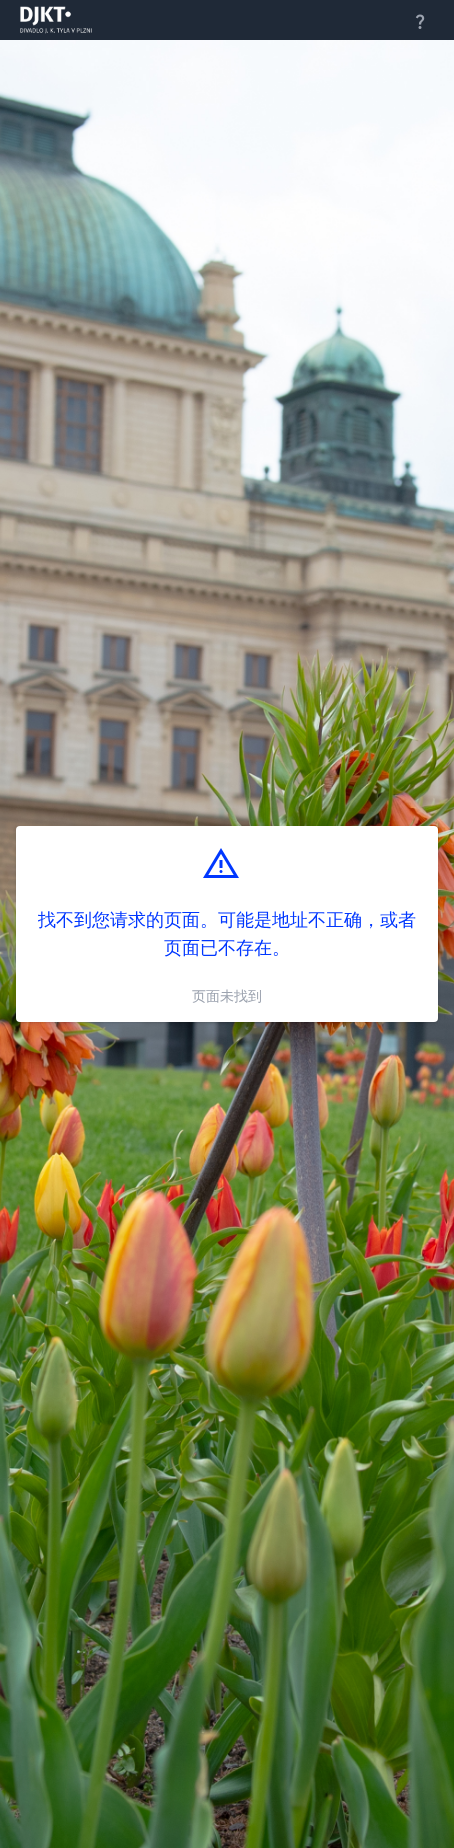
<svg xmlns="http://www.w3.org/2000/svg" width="454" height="1848">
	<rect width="100%" height="100%" fill="#FFFFFF" />
	<rect x="0" y="0" width="454" height="40" fill="#1F2937" />
	<image x="20" y="6" width="72" height="28" href="assets/img1.png" />
	<image x="415" y="14" width="10" height="15" href="assets/img2.png" />
	<image x="0" y="40" width="454" height="1808" href="assets/img3.png" />
	<rect x="17" y="828" width="420" height="194" rx="3" fill="#000000" fill-opacity="0.1" filter="blur(1px)" />
	<rect x="16" y="827" width="422" height="196" rx="4" fill="#000000" fill-opacity="0.1" filter="blur(1.5px)" />
	<rect x="16" y="826" width="422" height="196" rx="4" fill="#FFFFFF" />
	<image x="203" y="848" width="36" height="30" href="assets/img4.png" />
	<g font-family="WenQuanYi Zen Hei" font-size="18" font-weight="500" fill="#0037FF">
		<text x="38" y="926">找不到您请求的页面。可能是地址不正确，或者</text>
		<text x="164" y="954">页面已不存在。</text>
	</g>
	<text x="192" y="1001" font-family="WenQuanYi Zen Hei" font-size="14" font-weight="500" fill="#9CA3AF">页面未找到</text>
</svg>
